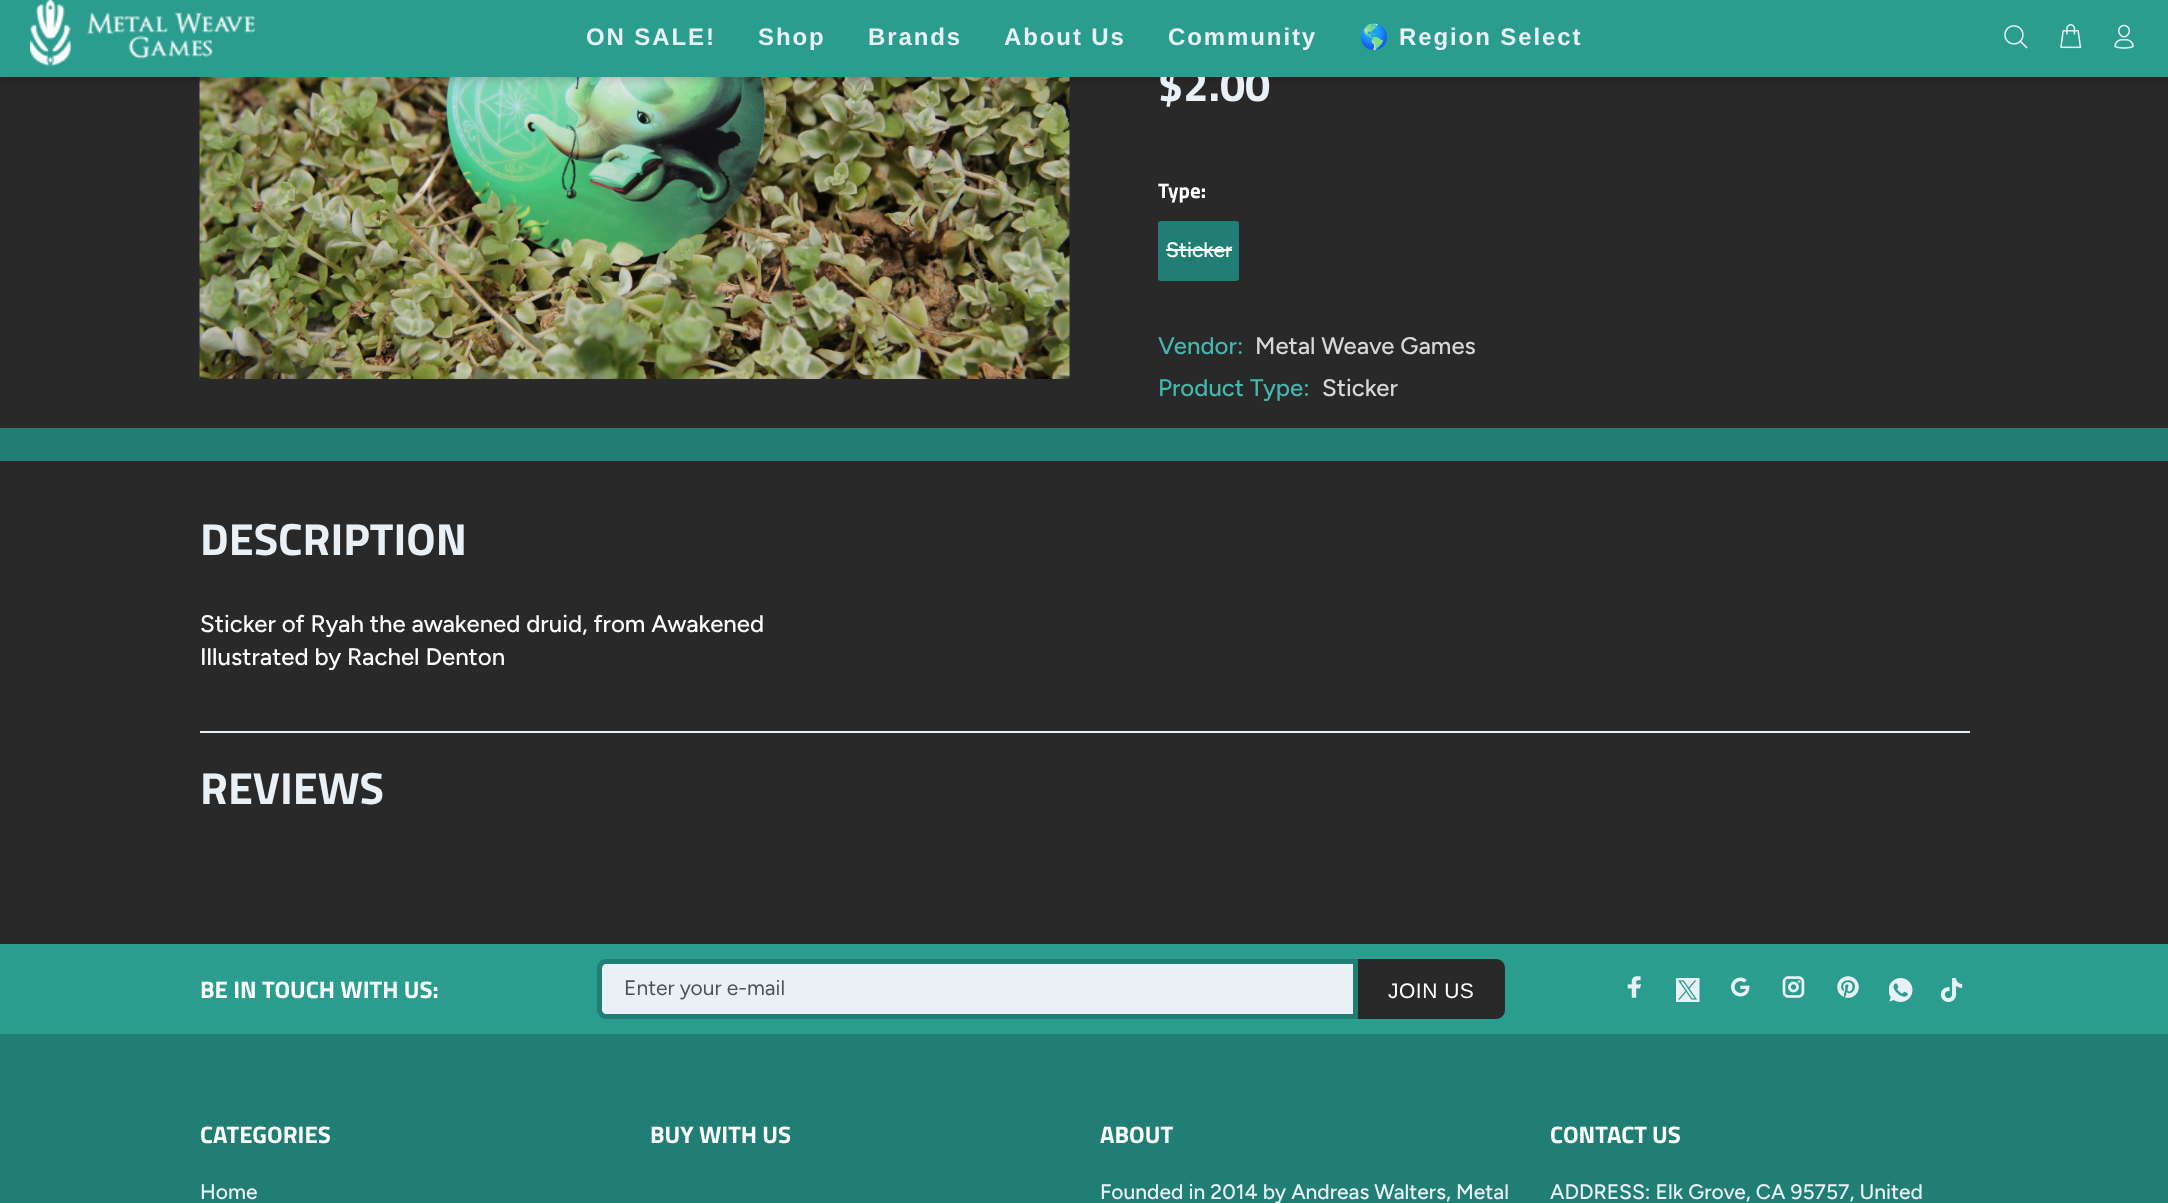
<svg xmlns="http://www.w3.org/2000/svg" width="2168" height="1203">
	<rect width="100%" height="100%" fill="#29292A" />
	<image x="199" y="77" width="871" height="302" href="assets/img5.png" />
	<rect x="0" y="0" width="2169" height="77" fill="#000000" fill-opacity="0.3" filter="blur(6px)" />
	<text x="1158" y="101" font-family="Titillium Web" font-size="45" font-weight="700" fill="#E9F1F7">$2.00</text>
	<rect x="0" y="0" width="2168" height="77" fill="#2A9D8F" />
	<image x="30" y="0" width="225" height="67" href="assets/img1.png" />
	<g font-family="Liberation Sans" font-size="24" font-weight="700" letter-spacing="1.9" fill="#E9F1F7">
		<text x="586" y="45">ON SALE!</text>
		<text x="758" y="45">Shop</text>
		<text x="868" y="45">Brands</text>
		<text x="1004" y="45">About Us</text>
		<text x="1168" y="45">Community</text>
	</g>
	<text x="1359" y="45" font-family="Noto Color Emoji" font-size="24" font-weight="700" letter-spacing="1.9" fill="#E9F1F7">🌎</text>
	<text x="1399" y="45" font-family="Liberation Sans" font-size="24" font-weight="700" letter-spacing="1.9" fill="#E9F1F7">Region Select</text>
	<image x="2004" y="25" width="24" height="24" href="assets/img2.png" />
	<image x="2060" y="24" width="22" height="25" href="assets/img3.png" />
	<image x="2114" y="24" width="20" height="25" href="assets/img4.png" />
	<text x="1158" y="198" font-family="Titillium Web" font-size="21" font-weight="700" fill="#FFFFFF">Type:</text>
	<rect x="1158" y="221" width="81" height="60" rx="3" fill="#207E74" />
	<text x="1166" y="257" font-family="Figtree" font-size="21" font-weight="500" fill="#FFFFFF">Sticker</text>
	<rect x="1166" y="249" width="66" height="2" fill="#FFFFFF" />
	<text x="1158" y="354" font-family="Figtree" font-size="24" font-weight="500" fill="#43B8AF">Vendor:</text>
	<text x="1255" y="354" font-family="Figtree" font-size="24" font-weight="500" fill="#D8D8D8">Metal Weave Games</text>
	<text x="1158" y="396" font-family="Figtree" font-size="24" font-weight="500" fill="#43B8AF">Product Type:</text>
	<text x="1322" y="396" font-family="Figtree" font-size="24" font-weight="500" fill="#D8D8D8">Sticker</text>
	<rect x="0" y="428" width="2168" height="33" fill="#207E74" />
	<rect x="200" y="731" width="1770" height="2" fill="#E9F1F7" />
	<text x="200" y="555" font-family="Titillium Web" font-size="45" font-weight="700" fill="#E9F1F7">DESCRIPTION</text>
	<g font-family="Figtree" font-size="24" font-weight="500" fill="#FFFFFF">
		<text x="200" y="632">Sticker of Ryah the awakened druid, from Awakened</text>
		<text x="200" y="665">Illustrated by Rachel Denton</text>
	</g>
	<text x="200" y="804" font-family="Titillium Web" font-size="45" font-weight="700" fill="#E9F1F7">REVIEWS</text>
	<rect x="0" y="1034" width="2168" height="169" fill="#207E74" />
	<rect x="0" y="944" width="2168" height="90" fill="#2A9D8F" />
	<text x="200" y="998" font-family="Titillium Web" font-size="24" font-weight="700" fill="#FFFFFF">BE IN TOUCH WITH US:</text>
	<path d="M606 961.5H1355.5V1016.5H606C602.5 1016.5 599.5 1013.5 599.5 1010V968C599.5 964.5 602.5 961.5 606 961.5Z" fill="#E9F1F7" stroke="#207E74" stroke-width="5" />
	<text x="624" y="995" font-family="Figtree" font-size="21" fill="#4F5153">Enter your e-mail</text>
	<path d="M1358 959H1496C1501 959 1505 963 1505 968V1010C1505 1015 1501 1019 1496 1019H1358Z" fill="#29292A" />
	<text x="1388" y="998" font-family="Liberation Sans" font-size="21" letter-spacing="0.5" fill="#FFFFFF">JOIN US</text>
	<image x="1627" y="976" width="15" height="22" href="assets/img6.png" />
	<image x="1676" y="978" width="24" height="24" href="assets/img7.png" />
	<image x="1731" y="977" width="19" height="20" href="assets/img8.png" />
	<image x="1782" y="976" width="23" height="22" href="assets/img9.png" />
	<image x="1837" y="976" width="22" height="22" href="assets/img10.png" />
	<image x="1889" y="978" width="24" height="24" href="assets/img11.png" />
	<image x="1940" y="978" width="23" height="24" href="assets/img12.png" />
	<text x="200" y="1143" font-family="Titillium Web" font-size="24" font-weight="700" fill="#FFFFFF">CATEGORIES</text>
	<text x="200" y="1199" font-family="Figtree" font-size="21" font-weight="500" fill="#E9F1F7">Home</text>
	<g font-family="Titillium Web" font-size="24" font-weight="700" fill="#FFFFFF">
		<text x="650" y="1143">BUY WITH US</text>
		<text x="1100" y="1143">ABOUT</text>
	</g>
	<text x="1100" y="1199" font-family="Figtree" font-size="21" font-weight="500" fill="#E9F1F7">Founded in 2014 by Andreas Walters, Metal</text>
	<text x="1550" y="1143" font-family="Titillium Web" font-size="24" font-weight="700" fill="#FFFFFF">CONTACT US</text>
	<text x="1550" y="1199" font-family="Figtree" font-size="21" font-weight="500" fill="#E9F1F7">ADDRESS: Elk Grove, CA 95757, United</text>
</svg>
